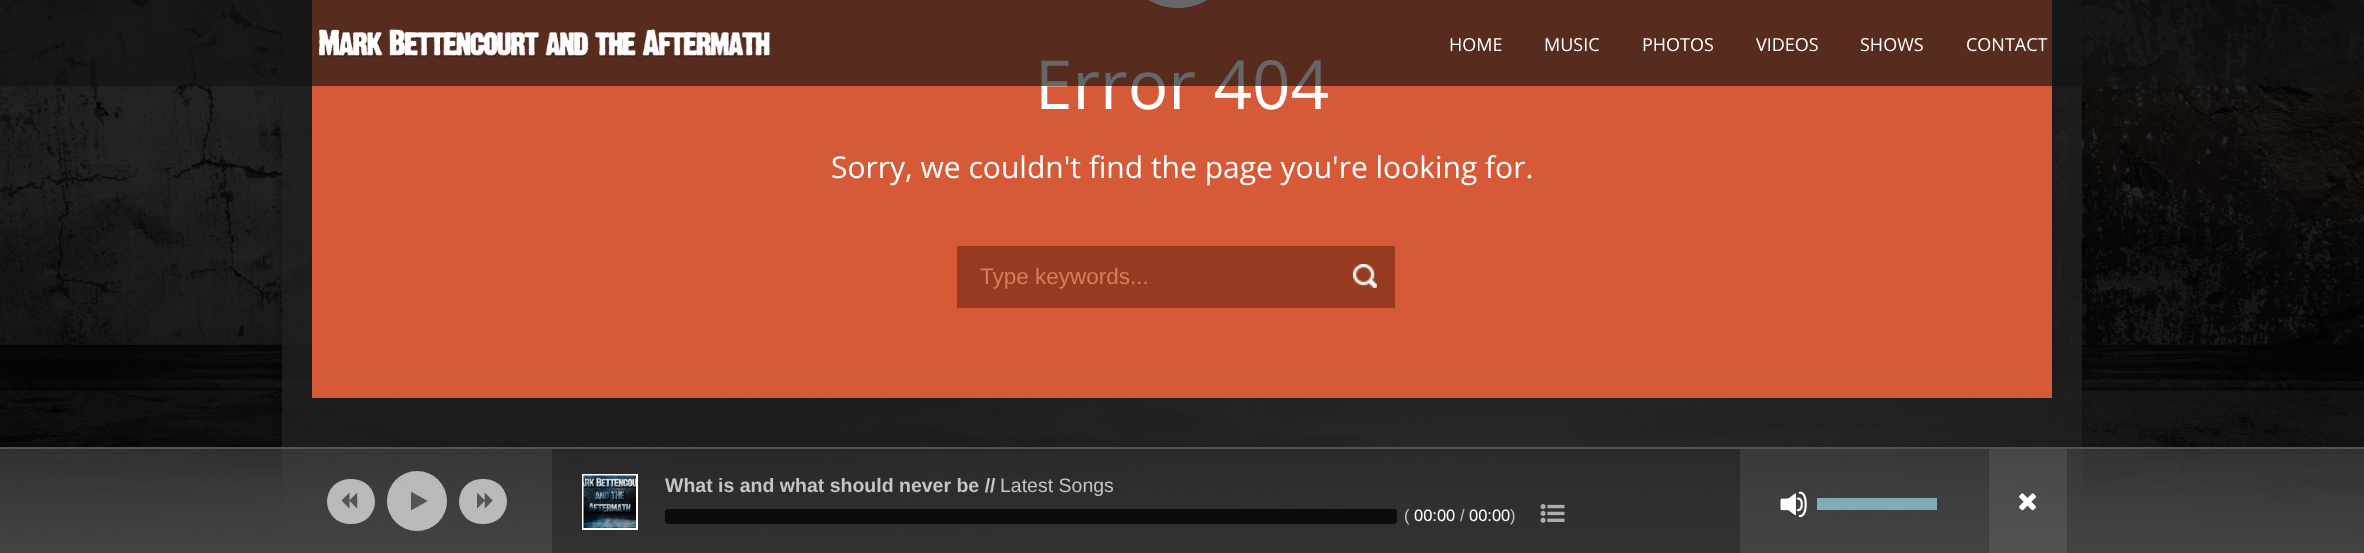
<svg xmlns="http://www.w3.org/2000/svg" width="2364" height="553">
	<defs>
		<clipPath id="clip1"><path d="M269 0H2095V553H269ZM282-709H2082V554H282Z" clip-rule="evenodd" /></clipPath>
	</defs>
	<rect width="100%" height="100%" fill="#FFFFFF" />
	<image x="0" y="0" width="2364" height="551" href="assets/img1.png" />
	<g clip-path="url(#clip1)">
		<rect x="282" y="-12" width="1800" height="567" fill="#000000" fill-opacity="0.15" filter="blur(4px)" />
	</g>
	<rect x="282" y="0" width="1800" height="551" fill="#212121" fill-opacity="0.8" />
	<rect x="312" y="0" width="1740" height="398" fill="#D65938" />
	<image x="1148" y="0" width="59" height="8" href="assets/img3.png" />
	<text x="1035" y="109" font-family="Open Sans" font-size="67.5" fill="#FFFFFF">Error 404</text>
	<rect x="0" y="0" width="2364" height="86" fill="#111111" fill-opacity="0.64" />
	<image x="319" y="29" width="452" height="28" href="assets/img2.png" />
	<g font-family="Open Sans" font-size="18" fill="#FFFFFF">
		<text x="1449" y="51">HOME</text>
		<text x="1544" y="51">MUSIC</text>
		<text x="1642" y="51">PHOTOS</text>
		<text x="1756" y="51">VIDEOS</text>
		<text x="1860" y="51">SHOWS</text>
		<text x="1966" y="51">CONTACT</text>
	</g>
	<text x="831" y="178" font-family="Open Sans" font-size="30" fill="#FFFFFF">Sorry, we couldn't find the page you're looking for.</text>
	<rect x="957" y="246" width="438" height="62" fill="#963A20" />
	<text x="980" y="284" font-family="Liberation Sans" font-size="22.5" fill="#D57F5C">Type keywords...</text>
	<image x="1353" y="264" width="24" height="24" href="assets/img4.png" />
	<image x="0" y="449" width="2364" height="104" href="assets/img5.png" />
	<rect x="0" y="447" width="2364" height="2" fill="#535353" />
	<rect x="327" y="479" width="48" height="45" rx="22.5" fill="#DADADA" fill-opacity="0.8" />
	<image x="341" y="493" width="17" height="16" href="assets/img6.png" />
	<circle cx="417" cy="501" r="30" fill="#DADADA" fill-opacity="0.8" />
	<image x="411" y="492" width="17" height="18" href="assets/img7.png" />
	<rect x="459" y="479" width="48" height="45" rx="22.5" fill="#DADADA" fill-opacity="0.8" />
	<image x="477" y="493" width="16" height="16" href="assets/img8.png" />
	<rect x="552" y="449" width="966" height="104" fill="#000000" fill-opacity="0.25" />
	<rect x="583" y="475" width="54" height="54" fill="none" stroke="#FFFFFF" stroke-width="2" />
	<image x="583" y="475" width="53" height="53" href="assets/img9.png" />
	<text x="665" y="492" font-family="Liberation Sans" font-size="19.5" font-weight="700" fill="#C5C5C5">What is and what should never be //</text>
	<text x="1000" y="492" font-family="Liberation Sans" font-size="19.5" fill="#C5C5C5">Latest Songs</text>
	<rect x="665" y="509" width="732" height="15" rx="3" fill="#0B0B0B" />
	<text x="1404" y="521" font-family="Liberation Sans" font-size="16.5" fill="#C5C5C5">(</text>
	<text x="1414" y="521" font-family="Liberation Sans" font-size="16.5" fill="#FFFFFF">00:00</text>
	<text x="1460" y="521" font-family="Liberation Sans" font-size="16.5" fill="#C5C5C5">/</text>
	<text x="1469" y="521" font-family="Liberation Sans" font-size="16.5" fill="#FFFFFF">00:00</text>
	<text x="1510" y="521" font-family="Liberation Sans" font-size="16.5" fill="#C5C5C5">)</text>
	<rect x="1518" y="449" width="222" height="104" fill="#000000" fill-opacity="0.25" />
	<image x="1540" y="504" width="25" height="19" href="assets/img10.png" />
	<image x="1780" y="491" width="27" height="27" href="assets/img11.png" />
	<rect x="1817" y="498" width="120" height="12" fill="#7FACB7" />
	<rect x="1989" y="449" width="78" height="104" fill="#D8D8D8" fill-opacity="0.1" />
	<image x="2019" y="493" width="17" height="18" href="assets/img12.png" />
</svg>
